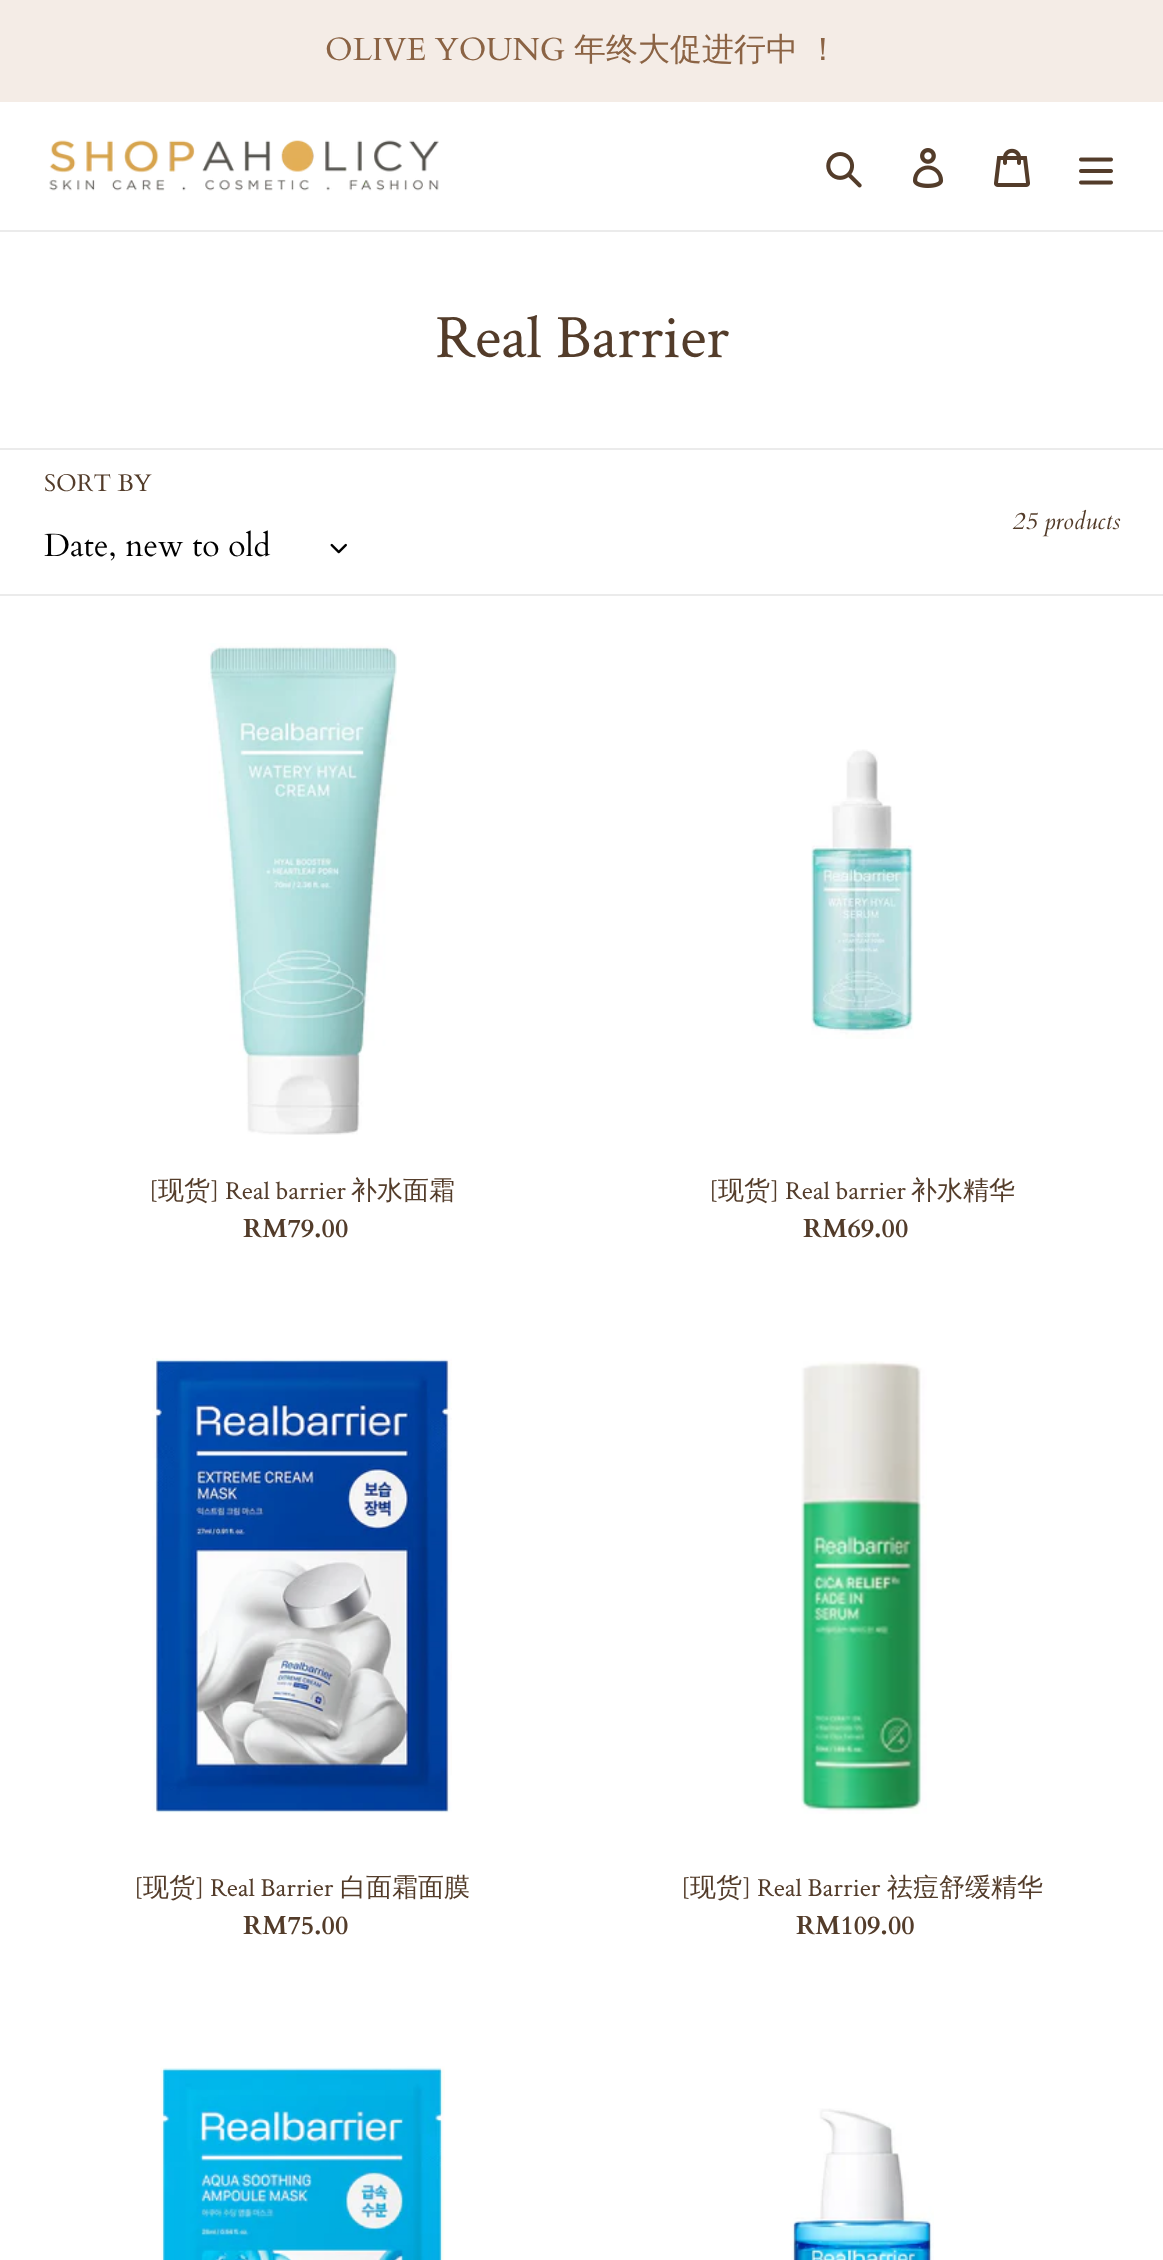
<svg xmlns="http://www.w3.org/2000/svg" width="1163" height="2260">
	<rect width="100%" height="100%" fill="#FFFFFF" />
	<rect x="0" y="0" width="1163" height="102" fill="#F4ECE6" />
	<text x="325" y="60" font-family="Cardo" font-size="32" fill="#8B6344">OLIVE YOUNG</text>
	<g font-family="WenQuanYi Zen Hei" font-size="32" font-weight="500" fill="#8B6344">
		<text x="574" y="60">年终大促进行中</text>
		<text x="807" y="60">！</text>
	</g>
	<rect x="0" y="230" width="1163" height="2" fill="#EBEBEB" />
	<image x="49" y="140" width="390" height="51" href="assets/img1.png" />
	<image x="826" y="152" width="36" height="36" href="assets/img2.png" />
	<image x="913" y="148" width="31" height="40" href="assets/img3.png" />
	<image x="994" y="148" width="36" height="39" href="assets/img4.png" />
	<image x="1079" y="157" width="34" height="28" href="assets/img5.png" />
	<text x="435" y="357" font-family="Crimson Text" font-size="62" fill="#533C2A">Real Barrier</text>
	<rect x="0" y="448" width="1163" height="2" fill="#EBEBEB" />
	<rect x="0" y="594" width="1163" height="2" fill="#EBEBEB" />
	<text x="44" y="491" font-family="Cardo" font-size="24" fill="#533C2A">SORT BY</text>
	<text x="44" y="556" font-family="Cardo" font-size="32" fill="#000000">Date, new to old</text>
	<image x="330" y="543" width="17" height="11" href="assets/img6.png" />
	<text x="1013" y="529" font-family="Cardo" font-size="24" font-style="italic" fill="#533C2A">25 products</text>
	<image x="208" y="643" width="189" height="492" href="assets/img7.png" />
	<text x="149" y="1199" font-family="Crimson Text" font-size="26" fill="#533C2A">[</text>
	<text x="158" y="1199" font-family="WenQuanYi Zen Hei" font-size="26" font-weight="500" fill="#533C2A">现货</text>
	<text x="210" y="1199" font-family="Crimson Text" font-size="26" fill="#533C2A">] Real barrier</text>
	<text x="351" y="1199" font-family="WenQuanYi Zen Hei" font-size="26" font-weight="500" fill="#533C2A">补水面霜</text>
	<text x="243" y="1237" font-family="Cardo" font-size="26" font-weight="700" fill="#533C2A">RM79.00</text>
	<image x="811" y="749" width="103" height="290" href="assets/img8.png" />
	<text x="709" y="1199" font-family="Crimson Text" font-size="26" fill="#533C2A">[</text>
	<text x="718" y="1199" font-family="WenQuanYi Zen Hei" font-size="26" font-weight="500" fill="#533C2A">现货</text>
	<text x="770" y="1199" font-family="Crimson Text" font-size="26" fill="#533C2A">] Real barrier</text>
	<text x="911" y="1199" font-family="WenQuanYi Zen Hei" font-size="26" font-weight="500" fill="#533C2A">补水精华</text>
	<text x="803" y="1237" font-family="Cardo" font-size="26" font-weight="700" fill="#533C2A">RM69.00</text>
	<image x="152" y="1358" width="300" height="455" href="assets/img9.png" />
	<text x="134" y="1896" font-family="Crimson Text" font-size="26" fill="#533C2A">[</text>
	<text x="143" y="1896" font-family="WenQuanYi Zen Hei" font-size="26" font-weight="500" fill="#533C2A">现货</text>
	<text x="195" y="1896" font-family="Crimson Text" font-size="26" fill="#533C2A">] Real Barrier</text>
	<text x="340" y="1896" font-family="WenQuanYi Zen Hei" font-size="26" font-weight="500" fill="#533C2A">白面霜面膜</text>
	<text x="243" y="1934" font-family="Cardo" font-size="26" font-weight="700" fill="#533C2A">RM75.00</text>
	<image x="801" y="1361" width="126" height="453" href="assets/img10.png" />
	<text x="681" y="1896" font-family="Crimson Text" font-size="26" fill="#533C2A">[</text>
	<text x="690" y="1896" font-family="WenQuanYi Zen Hei" font-size="26" font-weight="500" fill="#533C2A">现货</text>
	<text x="742" y="1896" font-family="Crimson Text" font-size="26" fill="#533C2A">] Real Barrier</text>
	<text x="887" y="1896" font-family="WenQuanYi Zen Hei" font-size="26" font-weight="500" fill="#533C2A">祛痘舒缓精华</text>
	<text x="796" y="1934" font-family="Cardo" font-size="26" font-weight="700" fill="#533C2A">RM109.00</text>
	<image x="160" y="2066" width="285" height="194" href="assets/img11.png" />
	<image x="790" y="2108" width="144" height="152" href="assets/img12.png" />
</svg>
